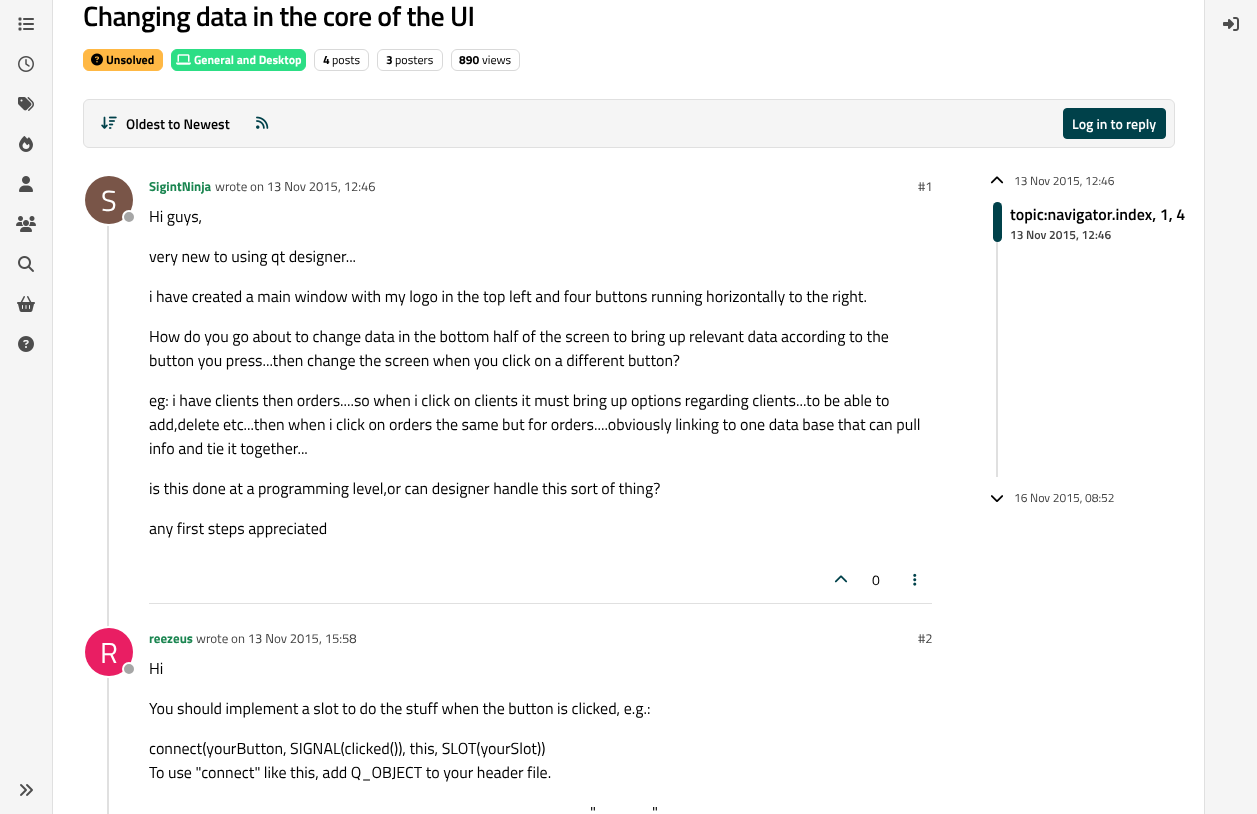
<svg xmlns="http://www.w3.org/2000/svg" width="1257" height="814">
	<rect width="100%" height="100%" fill="#FFFFFF" />
	<rect x="0" y="0" width="52" height="814" fill="#F5F5F5" />
	<rect x="52" y="0" width="1" height="814" fill="#E0E0E0" />
	<image x="18" y="17" width="16" height="14" href="assets/img1.png" />
	<image x="18" y="56" width="16" height="16" href="assets/img2.png" />
	<image x="18" y="97" width="16" height="14" href="assets/img3.png" />
	<image x="19" y="136" width="14" height="16" href="assets/img4.png" />
	<image x="19" y="176" width="14" height="16" href="assets/img5.png" />
	<image x="16" y="216" width="20" height="16" href="assets/img6.png" />
	<image x="18" y="256" width="16" height="16" href="assets/img7.png" />
	<image x="17" y="296" width="18" height="16" href="assets/img8.png" />
	<image x="18" y="336" width="16" height="16" href="assets/img9.png" />
	<image x="20" y="784" width="13" height="12" href="assets/img10.png" />
	<text x="83" y="26" font-family="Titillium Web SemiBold" font-size="28" font-weight="600" letter-spacing="-0.55" fill="#000000">Changing data in the core of the UI</text>
	<rect x="83.5" y="49.5" width="79" height="21" rx="5.5" fill="#FFB844" stroke="#FFB844" />
	<image x="91" y="53" width="12" height="13" href="assets/img11.png" />
	<text x="106" y="64" font-family="Titillium Web" font-size="12" font-weight="700" fill="#000000">Unsolved</text>
	<rect x="171.5" y="49.5" width="134" height="21" rx="5.5" fill="#2CDE85" stroke="#2CDE85" />
	<image x="176" y="54" width="15" height="11" href="assets/img12.png" />
	<text x="194" y="64" font-family="Titillium Web" font-size="12" font-weight="700" fill="#FFFFFF">General and Desktop</text>
	<rect x="314.5" y="49.5" width="54" height="21" rx="5.5" fill="none" stroke="#D9D9D9" />
	<text x="323" y="64" font-family="Titillium Web" font-size="12" font-weight="700" fill="#000000">4</text>
	<text x="332" y="64" font-family="Titillium Web" font-size="12" fill="#000000">posts</text>
	<rect x="377.5" y="49.5" width="65" height="21" rx="5.5" fill="none" stroke="#D9D9D9" />
	<text x="386" y="64" font-family="Titillium Web" font-size="12" font-weight="700" fill="#000000">3</text>
	<text x="395" y="64" font-family="Titillium Web" font-size="12" fill="#000000">posters</text>
	<rect x="451.5" y="49.5" width="68" height="21" rx="5.5" fill="none" stroke="#D9D9D9" />
	<text x="459" y="64" font-family="Titillium Web" font-size="12" font-weight="700" fill="#000000">890</text>
	<text x="482" y="64" font-family="Titillium Web" font-size="12" fill="#000000">views</text>
	<rect x="83.5" y="99.5" width="1091" height="48" rx="5.5" fill="#F5F5F5" stroke="#E0E0E0" />
	<image x="101" y="116" width="16" height="13" href="assets/img13.png" />
	<text x="126" y="129" font-family="Titillium Web SemiBold" font-size="14" font-weight="600" fill="#000000">Oldest to Newest</text>
	<image x="256" y="116" width="13" height="13" href="assets/img14.png" />
	<rect x="1063.5" y="108.5" width="102" height="30" rx="3.5" fill="#00414A" stroke="#00414A" />
	<text x="1072" y="129" font-family="Titillium Web SemiBold" font-size="14" font-weight="600" fill="#FFFFFF">Log in to reply</text>
	<rect x="107" y="176" width="2" height="638" fill="#E0E0E0" />
	<circle cx="109" cy="200" r="25" fill="none" stroke="#FFFFFF" stroke-width="2" />
	<circle cx="109" cy="200" r="24" fill="#795548" />
	<text x="101" y="211" font-family="Titillium Web" font-size="29" fill="#FFFFFF">S</text>
	<circle cx="129" cy="217" r="6" fill="#A6A6A6" stroke="#FFFFFF" stroke-width="2" />
	<text x="149" y="191" font-family="Titillium Web" font-size="13" font-weight="700" fill="#1A8550">SigintNinja</text>
	<g font-family="Titillium Web" font-size="13" fill="#404040">
		<text x="215" y="191">wrote on 13 Nov 2015, 12:46</text>
		<text x="918" y="191">#1</text>
	</g>
	<g font-family="Titillium Web" font-size="16" fill="#000000">
		<text x="149" y="222">Hi guys,</text>
		<text x="149" y="262">very new to using qt designer...</text>
		<text x="149" y="302">i have created a main window with my logo in the top left and four buttons running horizontally to the right.</text>
		<text x="149" y="342">How do you go about to change data in the bottom half of the screen to bring up relevant data according to the</text>
		<text x="149" y="366">button you press...then change the screen when you click on a different button?</text>
		<text x="149" y="406">eg: i have clients then orders....so when i click on clients it must bring up options regarding clients...to be able to</text>
		<text x="149" y="430">add,delete etc...then when i click on orders the same but for orders....obviously linking to one data base that can pull</text>
		<text x="149" y="454">info and tie it together...</text>
		<text x="149" y="494">is this done at a programming level,or can designer handle this sort of thing?</text>
		<text x="149" y="534">any first steps appreciated</text>
	</g>
	<rect x="149" y="603" width="783" height="1" fill="#E0E0E0" />
	<image x="834" y="575" width="14" height="8" href="assets/img15.png" />
	<text x="872" y="585" font-family="Titillium Web" font-size="14" fill="#000000">0</text>
	<image x="913" y="573" width="4" height="13" href="assets/img16.png" />
	<circle cx="109" cy="652" r="25" fill="none" stroke="#FFFFFF" stroke-width="2" />
	<circle cx="109" cy="652" r="24" fill="#E91E63" />
	<text x="100" y="663" font-family="Titillium Web" font-size="29" fill="#FFFFFF">R</text>
	<circle cx="129" cy="669" r="6" fill="#A6A6A6" stroke="#FFFFFF" stroke-width="2" />
	<text x="149" y="643" font-family="Titillium Web" font-size="13" font-weight="700" fill="#1A8550">reezeus</text>
	<g font-family="Titillium Web" font-size="13" fill="#404040">
		<text x="196" y="643">wrote on 13 Nov 2015, 15:58</text>
		<text x="918" y="643">#2</text>
	</g>
	<g font-family="Titillium Web" font-size="16" fill="#000000">
		<text x="149" y="674">Hi</text>
		<text x="149" y="714">You should implement a slot to do the stuff when the button is clicked, e.g.:</text>
		<text x="149" y="754">connect(yourButton, SIGNAL(clicked()), this, SLOT(yourSlot))</text>
		<text x="149" y="778">To use "connect" like this, add Q_OBJECT to your header file.</text>
		<text x="590" y="818">"</text>
		<text x="652" y="818">"</text>
	</g>
	<image x="990" y="176" width="14" height="8" href="assets/img17.png" />
	<text x="1014" y="185" font-family="Titillium Web" font-size="12" fill="#404040">13 Nov 2015, 12:46</text>
	<rect x="996" y="202" width="2" height="275" fill="#E0E0E0" />
	<rect x="993" y="202" width="9" height="40" rx="4.5" fill="#00414A" />
	<text x="1010" y="220" font-family="Titillium Web SemiBold" font-size="16" font-weight="600" fill="#000000">topic:navigator.index, 1, 4</text>
	<text x="1010" y="239" font-family="Titillium Web SemiBold" font-size="12" font-weight="600" fill="#404040">13 Nov 2015, 12:46</text>
	<image x="991" y="495" width="12" height="7" href="assets/img18.png" />
	<text x="1014" y="502" font-family="Titillium Web" font-size="12" fill="#404040">16 Nov 2015, 08:52</text>
	<rect x="1205" y="0" width="52" height="814" fill="#F5F5F5" />
	<rect x="1204" y="0" width="1" height="814" fill="#E0E0E0" />
	<image x="1223" y="17" width="16" height="14" href="assets/img19.png" />
</svg>
